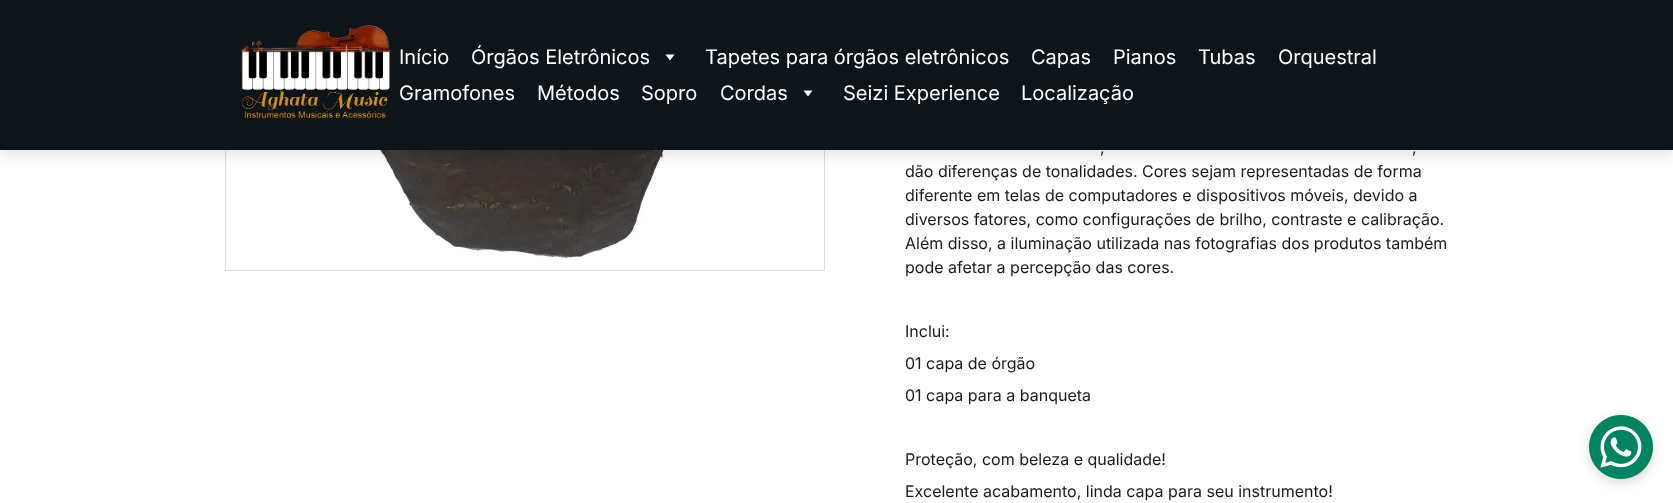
<svg xmlns="http://www.w3.org/2000/svg" width="1673" height="503">
	<rect width="100%" height="100%" fill="#FFFFFF" />
	<rect x="225.5" y="-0.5" width="599" height="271" fill="none" stroke="#DADCE0" />
	<image x="320" y="150" width="400" height="109" href="assets/img2.png" />
	<rect x="0" y="6" width="1673" height="150" fill="#000000" fill-opacity="0.1" filter="blur(7px)" />
	<rect x="0" y="0" width="1673" height="150" fill="#0D141A" />
	<image x="241" y="25" width="149" height="94" href="assets/img1.png" />
	<g font-family="Inter" font-size="20" fill="#FFFFFF">
		<text x="399" y="64">Início</text>
		<text x="471" y="64">Órgãos Eletrônicos</text>
	</g>
	<path d="M670 60.5L665.5 54.5H674.5Z" fill="#FFFFFF" />
	<g font-family="Inter" font-size="20" fill="#FFFFFF">
		<text x="705" y="64">Tapetes para órgãos eletrônicos</text>
		<text x="1031" y="64">Capas</text>
		<text x="1113" y="64">Pianos</text>
		<text x="1198" y="64">Tubas</text>
		<text x="1278" y="64">Orquestral</text>
		<text x="399" y="100">Gramofones</text>
		<text x="537" y="100">Métodos</text>
		<text x="641" y="100">Sopro</text>
		<text x="720" y="100">Cordas</text>
	</g>
	<path d="M808 96.5L803.5 90.5H812.5Z" fill="#FFFFFF" />
	<g font-family="Inter" font-size="20" fill="#FFFFFF">
		<text x="843" y="100">Seizi Experience</text>
		<text x="1021" y="100">Localização</text>
	</g>
	<g font-family="Inter" font-size="16" fill="#1A1A1A">
		<text x="1100" y="153">,</text>
		<text x="1412" y="153">,</text>
		<text x="905" y="177">dão diferenças de tonalidades. Cores sejam representadas de forma</text>
		<text x="905" y="201">diferente em telas de computadores e dispositivos móveis, devido a</text>
		<text x="905" y="225">diversos fatores, como configurações de brilho, contraste e calibração.</text>
		<text x="905" y="249">Além disso, a iluminação utilizada nas fotografias dos produtos também</text>
		<text x="905" y="273">pode afetar a percepção das cores.</text>
		<text x="905" y="337">Inclui:</text>
		<text x="905" y="369">01 capa de órgão</text>
		<text x="905" y="401">01 capa para a banqueta</text>
		<text x="905" y="465">Proteção, com beleza e qualidade!</text>
		<text x="905" y="497">Excelente acabamento, linda capa para seu instrumento!</text>
	</g>
	<rect x="1589" y="419" width="64" height="64" rx="32" fill="#000000" fill-opacity="0.15" filter="blur(6px)" />
	<image x="1589" y="415" width="64" height="64" href="assets/img3.png" />
</svg>
